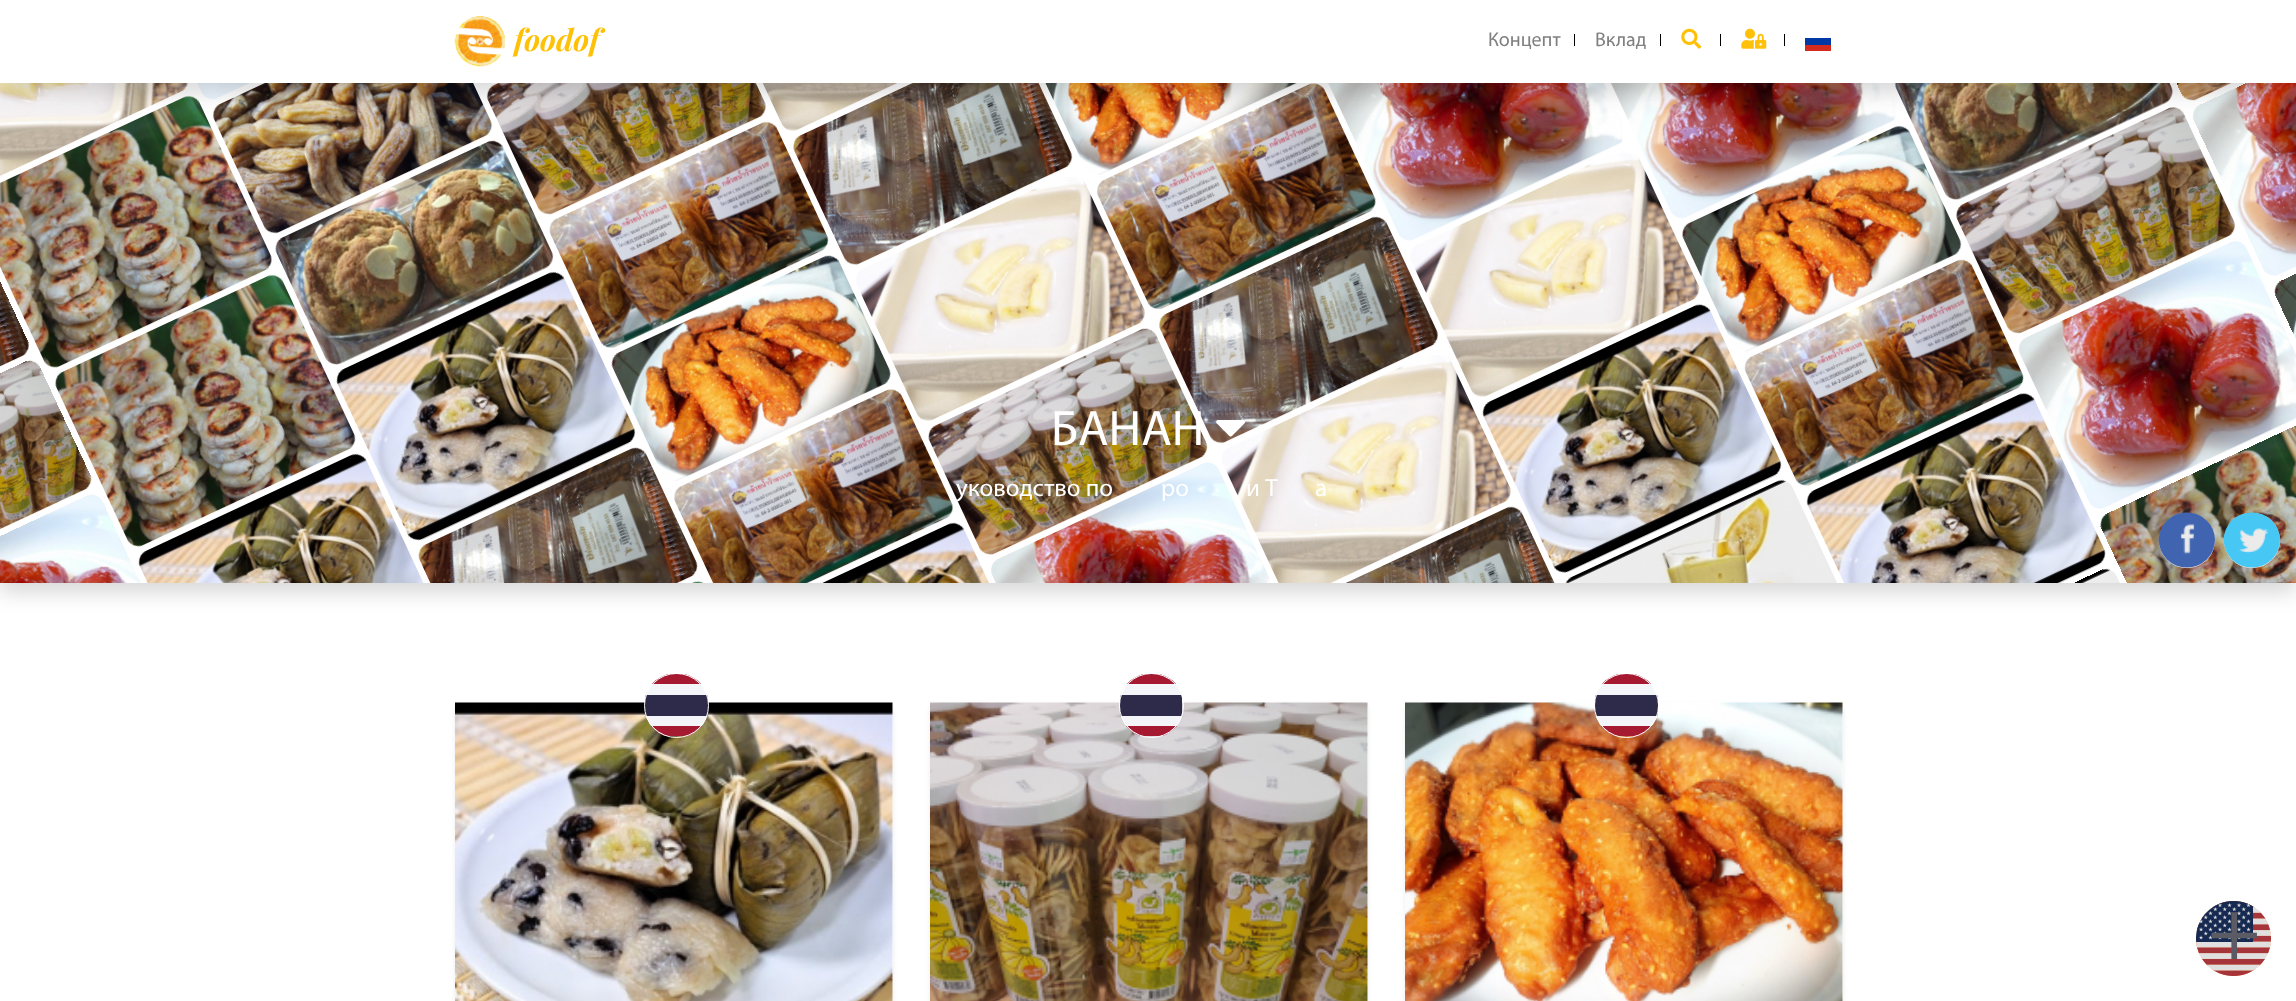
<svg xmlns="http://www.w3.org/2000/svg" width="2296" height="1001">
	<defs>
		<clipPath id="clip1"><rect x="644" y="673" width="65" height="65" rx="32.5" /></clipPath>
		<clipPath id="clip2"><rect x="1119" y="673" width="65" height="65" rx="32.5" /></clipPath>
		<clipPath id="clip3"><rect x="1594" y="673" width="65" height="65" rx="32.5" /></clipPath>
	</defs>
	<rect width="100%" height="100%" fill="#FFFFFF" />
	<rect x="0" y="93" width="2296" height="500" fill="#000000" fill-opacity="0.15" filter="blur(10px)" />
	<rect x="0" y="83" width="2296" height="500" fill="#FFFFFF" />
	<image x="0" y="83" width="189" height="93" href="assets/img4.png" />
	<image x="197" y="83" width="53" height="17" href="assets/img5.png" />
	<image x="0" y="95" width="272" height="273" href="assets/img16.png" />
	<image x="212" y="83" width="281" height="151" href="assets/img6.png" />
	<image x="486" y="83" width="280" height="132" href="assets/img7.png" />
	<image x="762" y="83" width="137" height="48" href="assets/img8.png" />
	<image x="275" y="140" width="279" height="225" href="assets/img17.png" />
	<image x="549" y="121" width="280" height="228" href="assets/img18.png" />
	<image x="792" y="83" width="281" height="182" href="assets/img9.png" />
	<image x="1045" y="83" width="253" height="92" href="assets/img10.png" />
	<image x="1328" y="83" width="295" height="158" href="assets/img12.png" />
	<image x="0" y="282" width="30" height="85" href="assets/img30.png" />
	<image x="0" y="360" width="92" height="170" href="assets/img35.png" />
	<image x="55" y="274" width="301" height="273" href="assets/img25.png" />
	<image x="336" y="271" width="300" height="270" href="assets/img26.png" />
	<image x="611" y="255" width="280" height="226" href="assets/img27.png" />
	<image x="856" y="177" width="289" height="244" href="assets/img19.png" />
	<image x="1096" y="83" width="280" height="227" href="assets/img11.png" />
	<image x="1611" y="83" width="285" height="136" href="assets/img13.png" />
	<image x="1894" y="83" width="279" height="117" href="assets/img14.png" />
	<image x="2177" y="83" width="55" height="18" href="assets/img15.png" />
	<image x="1159" y="216" width="280" height="228" href="assets/img20.png" />
	<image x="1410" y="153" width="290" height="244" href="assets/img21.png" />
	<image x="1682" y="125" width="280" height="227" href="assets/img22.png" />
	<image x="1956" y="107" width="280" height="227" href="assets/img23.png" />
	<image x="2192" y="83" width="104" height="193" href="assets/img24.png" />
	<rect x="0" y="10" width="2296" height="83" fill="#000000" fill-opacity="0.15" filter="blur(10px)" />
	<rect x="0" y="0" width="2296" height="83" fill="#FFFFFF" />
	<image x="454" y="16" width="51" height="51" href="assets/img1.png" />
	<text x="514" y="51" font-family="Playfair Display" font-size="30" font-weight="700" font-style="italic" fill="#FFC107">foodof</text>
	<text x="1488" y="46" font-family="Myriad" font-size="20" fill="#808080">Концепт</text>
	<rect x="1574" y="34" width="1" height="12" fill="#000000" />
	<text x="1595" y="46" font-family="Myriad" font-size="20" fill="#808080">Вклад</text>
	<rect x="1660" y="34" width="1" height="12" fill="#000000" />
	<image x="1681" y="28" width="21" height="21" href="assets/img2.png" />
	<rect x="1720" y="34" width="1" height="12" fill="#000000" />
	<image x="1741" y="28" width="26" height="21" href="assets/img3.png" />
	<rect x="1784" y="34" width="1" height="12" fill="#000000" />
	<rect x="1805" y="38" width="26" height="7" fill="#0039A6" />
	<rect x="1805" y="45" width="26" height="6" fill="#D52B1E" />
	<image x="1222" y="355" width="289" height="228" href="assets/img32.png" />
	<image x="1482" y="304" width="300" height="269" href="assets/img33.png" />
	<image x="1744" y="259" width="280" height="227" href="assets/img28.png" />
	<image x="2018" y="241" width="278" height="268" href="assets/img29.png" />
	<image x="0" y="494" width="140" height="89" href="assets/img43.png" />
	<image x="138" y="453" width="286" height="130" href="assets/img36.png" />
	<image x="418" y="447" width="280" height="136" href="assets/img37.png" />
	<image x="673" y="389" width="281" height="194" href="assets/img38.png" />
	<image x="928" y="328" width="280" height="227" href="assets/img31.png" />
	<image x="2274" y="274" width="22" height="64" href="assets/img34.png" />
	<image x="991" y="462" width="279" height="121" href="assets/img39.png" />
	<image x="1565" y="479" width="272" height="104" href="assets/img40.png" />
	<image x="1806" y="393" width="300" height="190" href="assets/img41.png" />
	<image x="2100" y="426" width="196" height="157" href="assets/img42.png" />
	<image x="692" y="581" width="12" height="2" href="assets/img44.png" />
	<image x="822" y="522" width="167" height="61" href="assets/img45.png" />
	<image x="1346" y="506" width="209" height="77" href="assets/img46.png" />
	<image x="2075" y="568" width="45" height="15" href="assets/img47.png" />
	<text x="1051" y="445" font-family="Myriad" font-size="50" fill="#FFFFFF">БАНАН</text>
	<image x="1216" y="420" width="30" height="17" href="assets/img48.png" />
	<g font-family="Myriad" font-size="25" fill="#FFFFFF">
		<text x="956" y="496">уководство по</text>
		<text x="1161" y="496">ро</text>
		<text x="1246" y="496">и Т</text>
		<text x="1315" y="496">а</text>
	</g>
	<rect x="2159" y="513" width="56" height="55" rx="27.5" fill="#EBEBEB" />
	<image x="2158" y="512" width="57" height="56" href="assets/img49.png" />
	<rect x="2224" y="513" width="56" height="55" rx="27.5" fill="#EBEBEB" />
	<image x="2223" y="512" width="57" height="56" href="assets/img50.png" />
	<rect x="455" y="705" width="438" height="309" rx="5" fill="#000000" fill-opacity="0.07" filter="blur(2.5px)" />
	<rect x="455" y="703" width="438" height="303" rx="5" fill="#FFFFFF" />
	<image x="455" y="702" width="438" height="299" href="assets/img51.png" />
	<g clip-path="url(#clip1)">
		<rect x="645" y="674" width="63" height="62" fill="#F4F5F8" />
		<rect x="645" y="695" width="63" height="21" fill="#2D2A4A" />
	</g>
	<path d="M652 684C656 679 662 676 668 674H685C691 676 697 679 701 684ZM665 736C660 734 655 730 651 726H702C698 730 693 734 688 736Z" fill="#A51931" fill-rule="evenodd" />
	<circle cx="676.5" cy="705.5" r="32" fill="none" stroke="#FFFFFF" />
	<rect x="930" y="705" width="438" height="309" rx="5" fill="#000000" fill-opacity="0.07" filter="blur(2.5px)" />
	<rect x="930" y="703" width="438" height="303" rx="5" fill="#FFFFFF" />
	<image x="930" y="702" width="438" height="299" href="assets/img52.png" />
	<g clip-path="url(#clip2)">
		<rect x="1120" y="674" width="62" height="62" fill="#F4F5F8" />
		<rect x="1120" y="695" width="62" height="21" fill="#2D2A4A" />
	</g>
	<path d="M1127 684C1131 679 1137 676 1143 674H1160C1166 676 1172 679 1176 684ZM1140 736C1135 734 1130 730 1126 726H1177C1173 730 1168 734 1163 736Z" fill="#A51931" fill-rule="evenodd" />
	<circle cx="1151.5" cy="705.5" r="32" fill="none" stroke="#FFFFFF" />
	<rect x="1405" y="705" width="438" height="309" rx="5" fill="#000000" fill-opacity="0.07" filter="blur(2.5px)" />
	<rect x="1405" y="703" width="438" height="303" rx="5" fill="#FFFFFF" />
	<image x="1405" y="702" width="438" height="299" href="assets/img53.png" />
	<g clip-path="url(#clip3)">
		<rect x="1595" y="674" width="63" height="62" fill="#F4F5F8" />
		<rect x="1595" y="695" width="63" height="21" fill="#2D2A4A" />
	</g>
	<path d="M1602 684C1606 679 1612 676 1618 674H1635C1641 676 1647 679 1651 684ZM1615 736C1610 734 1605 730 1601 726H1652C1648 730 1643 734 1638 736Z" fill="#A51931" fill-rule="evenodd" />
	<circle cx="1626.5" cy="705.5" r="32" fill="none" stroke="#FFFFFF" />
	<circle cx="2233.5" cy="938.5" r="37.5" fill="#F16B1A" />
	<image x="2196" y="901" width="75" height="75" href="assets/img54.png" />
	<circle cx="2233.5" cy="938.5" r="37.5" fill="#000000" fill-opacity="0.12" />
	<text x="2208" y="959" font-family="Myriad" font-size="88" fill="#5A5B65">+</text>
</svg>
